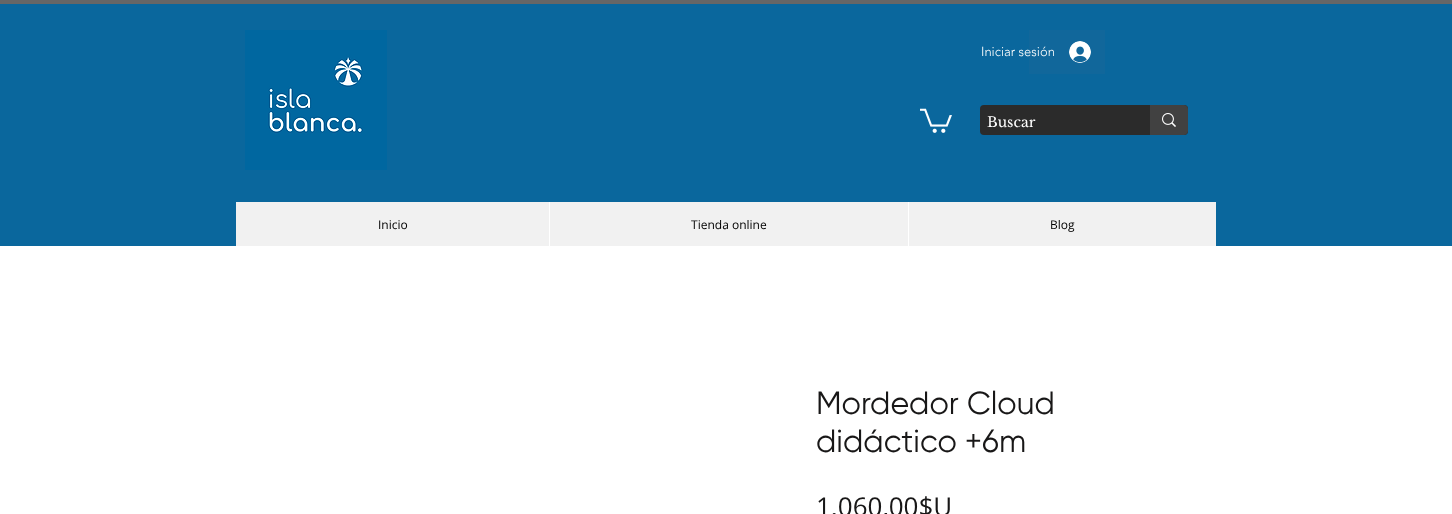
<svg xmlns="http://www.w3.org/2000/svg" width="1452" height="514">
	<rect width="100%" height="100%" fill="#FFFFFF" />
	<rect x="0" y="0" width="1452" height="4" fill="#666666" />
	<rect x="0" y="4" width="1452" height="242" fill="#0A679D" />
	<image x="245" y="30" width="142" height="140" href="assets/img1.png" />
	<rect x="1029" y="30" width="76" height="44" fill="#11679B" />
	<text x="981" y="56" font-family="'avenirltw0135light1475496'" font-size="13" font-weight="300" fill="#FFFFFF">Iniciar sesión</text>
	<image x="1069" y="41" width="22" height="22" href="assets/img2.png" />
	<image x="920" y="108" width="32" height="25" href="assets/img3.png" />
	<rect x="980" y="105" width="208" height="30" rx="4" fill="#2B2B2B" />
	<text x="987" y="127" font-family="Libre Baskerville" font-size="14" fill="#FFFFFF">Buscar</text>
	<path d="M1150 105H1184C1186 105 1188 107 1188 109V131C1188 133 1186 135 1184 135H1150Z" fill="#414141" />
	<image x="1162" y="113" width="14" height="14" href="assets/img4.png" />
	<rect x="236" y="202" width="980" height="44" fill="#F1F1F1" />
	<text x="378" y="229" font-family="Open Sans" font-size="12" fill="#000000">Inicio</text>
	<rect x="549" y="202" width="1" height="44" fill="#FFFFFF" />
	<text x="691" y="229" font-family="Open Sans" font-size="12" fill="#000000">Tienda online</text>
	<rect x="908" y="202" width="1" height="44" fill="#FFFFFF" />
	<text x="1050" y="229" font-family="Open Sans" font-size="12" fill="#000000">Blog</text>
	<g font-family="Gilroy" font-size="32" fill="#181717">
		<text x="816" y="414">Mordedor Cloud</text>
		<text x="816" y="452">didáctico +6m</text>
	</g>
	<text x="816" y="516" font-family="Open Sans" font-size="26" fill="#181717">1.060,00$U</text>
</svg>
